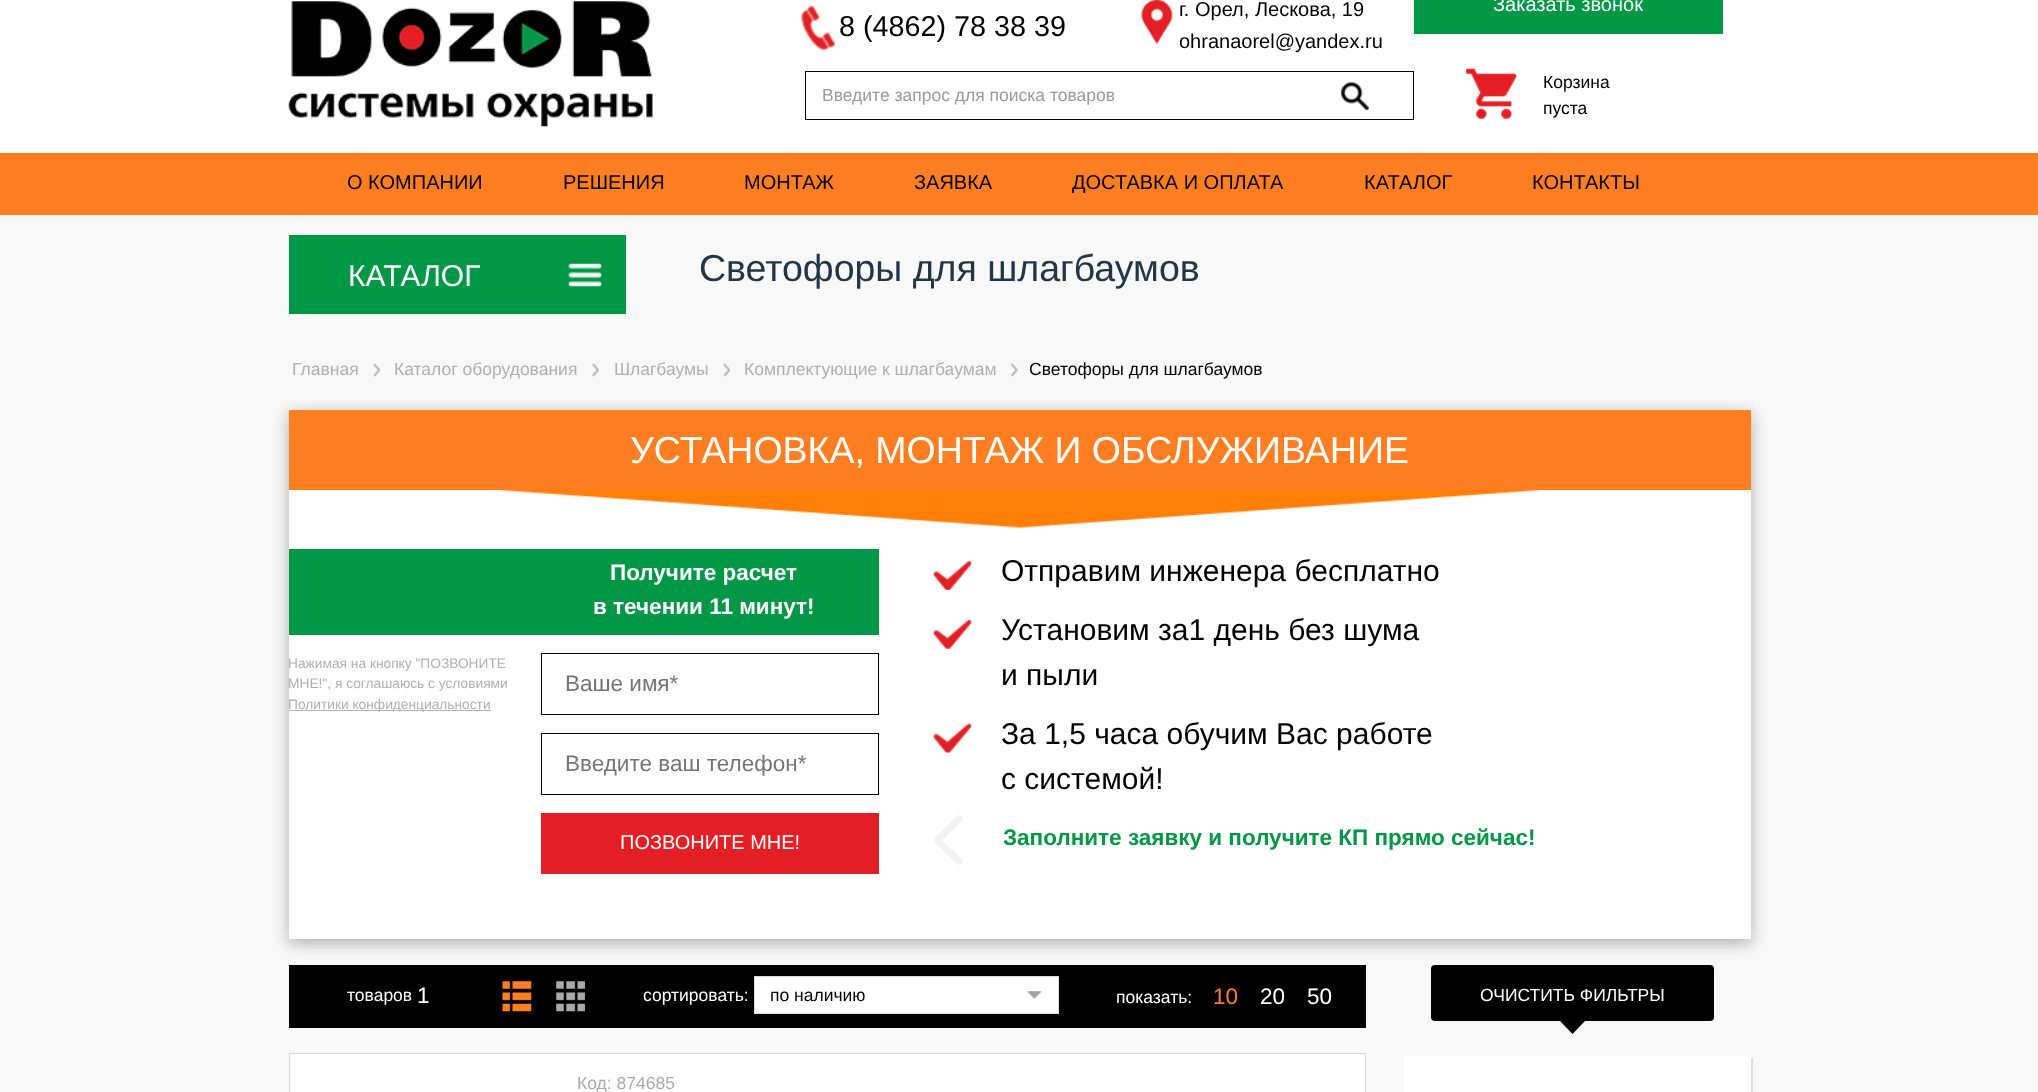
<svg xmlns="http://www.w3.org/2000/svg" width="2038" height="1092">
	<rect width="100%" height="100%" fill="#F8F8F8" />
	<rect x="0" y="0" width="2038" height="153" fill="#FFFFFF" />
	<image x="288" y="1" width="365" height="126" href="assets/img1.png" />
	<image x="801" y="5" width="35" height="46" href="assets/img2.png" />
	<text x="839" y="36" font-family="Liberation Sans" font-size="28.75" fill="#000000">8 (4862) 78 38 39</text>
	<image x="1141" y="0" width="32" height="44" href="assets/img3.png" />
	<g font-family="Liberation Sans" font-size="20" fill="#000000">
		<text x="1179" y="16">г. Орел, Лескова, 19</text>
		<text x="1179" y="48">ohranaorel@yandex.ru</text>
	</g>
	<rect x="1414" y="0" width="309" height="34" fill="#009846" />
	<text x="1493" y="11" font-family="Liberation Sans" font-size="20" fill="#FFFFFF">Заказать звонок</text>
	<image x="1466" y="68" width="51" height="51" href="assets/img4.png" />
	<g font-family="Liberation Sans" font-size="17.5" fill="#000000">
		<text x="1543" y="88">Корзина</text>
		<text x="1543" y="114">пуста</text>
	</g>
	<rect x="805.5" y="71.5" width="608" height="48" fill="none" stroke="#000000" />
	<text x="822" y="101" font-family="Liberation Sans" font-size="17.5" fill="#999999">Введите запрос для поиска товаров</text>
	<image x="1341" y="82" width="28" height="28" href="assets/img5.png" />
	<rect x="0" y="153" width="2038" height="62" fill="#FF7E21" />
	<g font-family="Liberation Sans" font-size="20" fill="#000000">
		<text x="347" y="189">О КОМПАНИИ</text>
		<text x="563" y="189">РЕШЕНИЯ</text>
		<text x="744" y="189">МОНТАЖ</text>
		<text x="914" y="189">ЗАЯВКА</text>
		<text x="1072" y="189">ДОСТАВКА И ОПЛАТА</text>
		<text x="1364" y="189">КАТАЛОГ</text>
		<text x="1532" y="189">КОНТАКТЫ</text>
	</g>
	<rect x="289" y="235" width="337" height="79" fill="#009846" />
	<image x="568" y="263" width="34" height="24" href="assets/img6.png" />
	<text x="348" y="286" font-family="Liberation Sans" font-size="30" fill="#FFFFFF">КАТАЛОГ</text>
	<text x="699" y="281" font-family="Liberation Sans" font-size="37.5" fill="#243547">Светофоры для шлагбаумов</text>
	<text x="292" y="375" font-family="Liberation Sans" font-size="17.5" fill="#B0B0B0">Главная</text>
	<image x="373" y="363" width="7" height="14" href="assets/img7.png" />
	<text x="394" y="375" font-family="Liberation Sans" font-size="17.5" fill="#B0B0B0">Каталог оборудования</text>
	<image x="592" y="363" width="7" height="14" href="assets/img8.png" />
	<text x="614" y="375" font-family="Liberation Sans" font-size="17.5" fill="#B0B0B0">Шлагбаумы</text>
	<image x="723" y="363" width="7" height="14" href="assets/img7.png" />
	<text x="744" y="375" font-family="Liberation Sans" font-size="17.5" fill="#B0B0B0">Комплектующие к шлагбаумам</text>
	<image x="1011" y="363" width="7" height="14" href="assets/img9.png" />
	<text x="1029" y="375" font-family="Liberation Sans" font-size="17.5" fill="#000000">Светофоры для шлагбаумов</text>
	<rect x="289" y="414" width="1462" height="529" fill="#949494" fill-opacity="0.77" filter="blur(8px)" />
	<rect x="289" y="490" width="1462" height="449" fill="#FFFFFF" />
	<rect x="289" y="410" width="1462" height="80" fill="#FF7E21" />
	<text x="630" y="463" font-family="Liberation Sans" font-size="37.5" fill="#FFFFFF">УСТАНОВКА, МОНТАЖ И ОБСЛУЖИВАНИЕ</text>
	<image x="500" y="490" width="1041" height="38" href="assets/img10.png" />
	<rect x="289" y="549" width="590" height="86" fill="#009846" />
	<g font-family="Liberation Sans" font-size="22.5" font-weight="700" fill="#FFFFFF">
		<text x="610" y="580">Получите расчет</text>
		<text x="593" y="614">в течении 11 минут!</text>
	</g>
	<g font-family="Liberation Sans" font-size="13.75" fill="#B0B0B0">
		<text x="288" y="668">Нажимая на кнопку "ПОЗВОНИТЕ</text>
		<text x="288" y="688">МНЕ!", я соглашаюсь с условиями</text>
	</g>
	<rect x="289" y="710" width="202" height="1" fill="#B5B5B5" />
	<text x="288" y="709" font-family="Liberation Sans" font-size="13.75" fill="#B0B0B0">Политики конфиденциальности</text>
	<rect x="541.5" y="653.5" width="337" height="61" fill="none" stroke="#000000" />
	<text x="565" y="691" font-family="Liberation Sans" font-size="22.5" fill="#757575">Ваше имя*</text>
	<rect x="541.5" y="733.5" width="337" height="61" fill="none" stroke="#000000" />
	<text x="565" y="771" font-family="Liberation Sans" font-size="22.5" fill="#757575">Введите ваш телефон*</text>
	<rect x="541" y="813" width="338" height="61" fill="#E31E24" />
	<text x="620" y="849" font-family="Liberation Sans" font-size="20" fill="#FFFFFF">ПОЗВОНИТЕ МНЕ!</text>
	<image x="933" y="561" width="39" height="29" href="assets/img11.png" />
	<text x="1001" y="581" font-family="Liberation Sans" font-size="30" fill="#000000">Отправим инженера бесплатно</text>
	<image x="933" y="620" width="39" height="29" href="assets/img12.png" />
	<g font-family="Liberation Sans" font-size="30" fill="#000000">
		<text x="1001" y="640">Установим за1 день без шума</text>
		<text x="1001" y="685">и пыли</text>
	</g>
	<image x="933" y="723" width="39" height="30" href="assets/img13.png" />
	<g font-family="Liberation Sans" font-size="30" fill="#000000">
		<text x="1001" y="744">За 1,5 часа обучим Вас работе</text>
		<text x="1001" y="789">с системой!</text>
	</g>
	<image x="934" y="815" width="29" height="50" href="assets/img14.png" />
	<text x="1003" y="845" font-family="Liberation Sans" font-size="22.5" font-weight="700" fill="#009846">Заполните заявку и получите КП прямо сейчас!</text>
	<rect x="289" y="965" width="1077" height="63" fill="#000000" />
	<text x="347" y="1001" font-family="Liberation Sans" font-size="17.5" fill="#FFFFFF">товаров</text>
	<text x="417" y="1003" font-family="Liberation Sans" font-size="22.5" fill="#FFFFFF">1</text>
	<image x="502" y="981" width="30" height="31" href="assets/img15.png" />
	<image x="556" y="981" width="29" height="31" href="assets/img16.png" />
	<text x="643" y="1001" font-family="Liberation Sans" font-size="17.5" fill="#FFFFFF">сортировать:</text>
	<rect x="755" y="977" width="303" height="36" fill="#FFFFFF" />
	<image x="1026" y="991" width="16" height="8" href="assets/img17.png" />
	<rect x="754.5" y="976.5" width="304" height="37" fill="none" stroke="#DDDDDD" />
	<text x="770" y="1001" font-family="Liberation Sans" font-size="17.5" fill="#000000">по наличию</text>
	<text x="1116" y="1003" font-family="Liberation Sans" font-size="17.5" fill="#FFFFFF">показать:</text>
	<text x="1213" y="1004" font-family="Liberation Sans" font-size="22.5" fill="#FF7E21">10</text>
	<g font-family="Liberation Sans" font-size="22.5" fill="#FFFFFF">
		<text x="1260" y="1004">20</text>
		<text x="1307" y="1004">50</text>
	</g>
	<rect x="290" y="1054" width="1075" height="38" fill="#FFFFFF" />
	<rect x="289" y="1053" width="1077" height="1" fill="#D9D9D9" />
	<path d="M1366 1052V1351L1365 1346V1054Z" fill="#D9D9D9" />
	<path d="M289 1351V1052L290 1054V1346Z" fill="#D9D9D9" />
	<text x="577" y="1089" font-family="Liberation Sans" font-size="17.5" fill="#AAAAAA">Код: 874685</text>
	<path d="M1405 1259V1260H1753V1058H1751V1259Z" fill="#DDDDDD" />
	<rect x="1404" y="1056" width="347" height="36" fill="#FFFFFF" />
	<rect x="1431" y="965" width="283" height="56" rx="4" fill="#000000" />
	<text x="1480" y="1001" font-family="Liberation Sans" font-size="17.5" fill="#FFFFFF">ОЧИСТИТЬ ФИЛЬТРЫ</text>
	<path d="M1560 1021H1585L1572.5 1034Z" fill="#000000" />
</svg>
